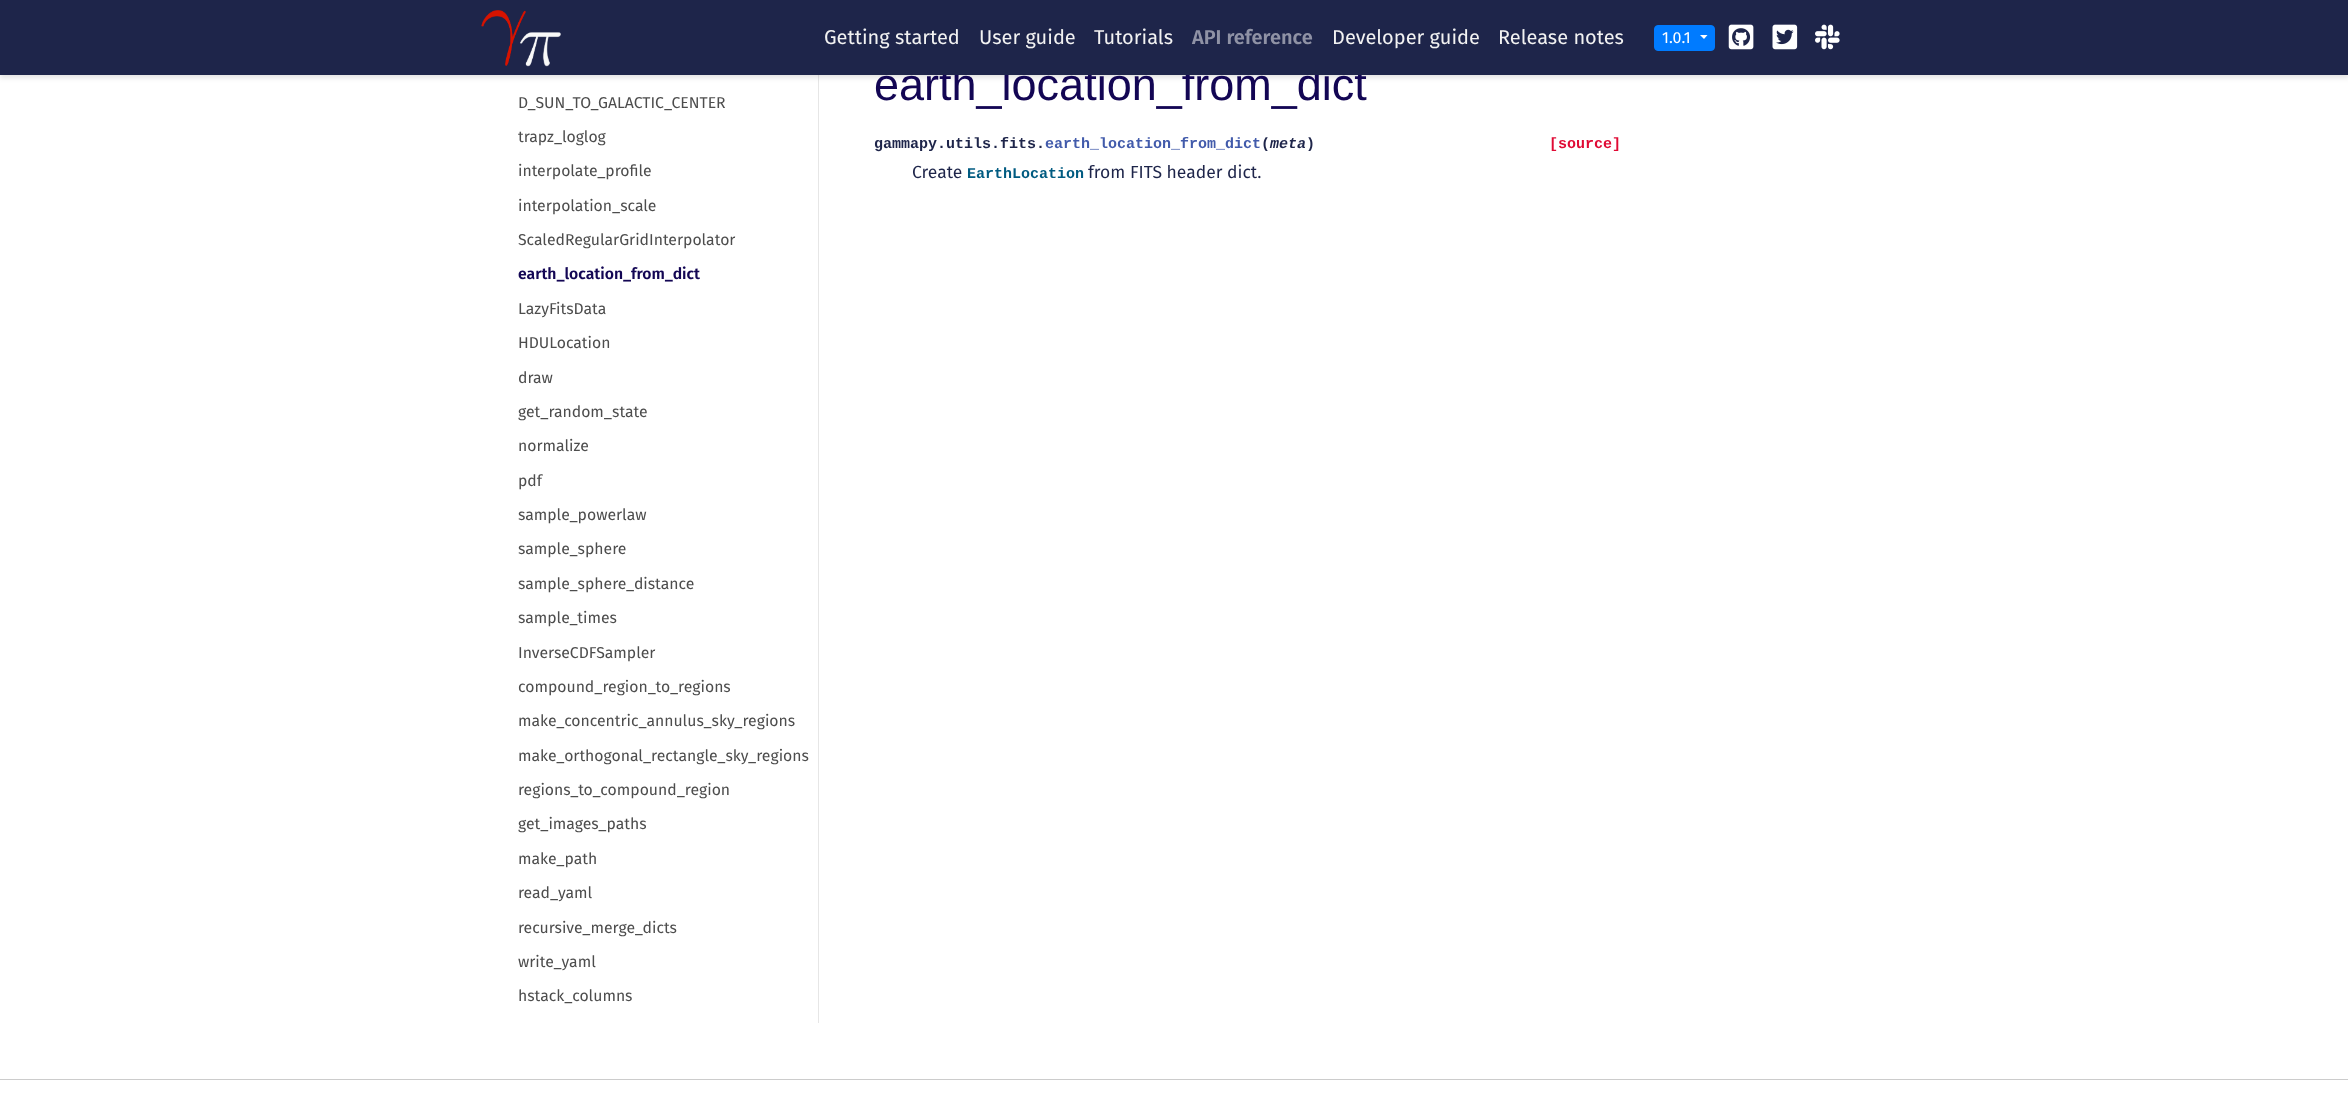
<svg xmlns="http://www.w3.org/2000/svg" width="2348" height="1094">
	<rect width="100%" height="100%" fill="#FFFFFF" />
	<rect x="818" y="75" width="1" height="948" fill="#E6E6E6" />
	<rect x="0" y="3" width="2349" height="75" fill="#000000" fill-opacity="0.11" filter="blur(2.5px)" />
	<text x="874" y="100" font-family="Liberation Sans" font-size="45" fill="#130654">earth_location_from_dict</text>
	<rect x="0" y="0" width="2348" height="75" fill="#1E254A" />
	<image x="481" y="10" width="80" height="57" href="assets/img1.png" />
	<g font-family="Fira Sans" font-size="20" fill="#F2F2F2">
		<text x="824" y="44">Getting started</text>
		<text x="979" y="44">User guide</text>
		<text x="1094" y="44">Tutorials</text>
	</g>
	<text x="1192" y="44" font-family="Fira Sans" font-size="20" font-weight="600" fill="#8F92A5">API reference</text>
	<g font-family="Fira Sans" font-size="20" fill="#F2F2F2">
		<text x="1332" y="44">Developer guide</text>
		<text x="1498" y="44">Release notes</text>
	</g>
	<rect x="1654.5" y="25.5" width="60" height="25" rx="3.5" fill="#007BFF" stroke="#007BFF" />
	<text x="1662" y="43" font-family="Fira Sans" font-size="16" fill="#FFFFFF">1.0.1</text>
	<path d="M1700 35H1707.5L1704 39Z" fill="#FFFFFF" />
	<image x="1728" y="24" width="26" height="26" href="assets/img2.png" />
	<image x="1772" y="24" width="26" height="26" href="assets/img3.png" />
	<image x="1815" y="24" width="25" height="26" href="assets/img4.png" />
	<g font-family="Fira Sans" font-size="15.75" fill="#4D4D4D">
		<text x="518" y="108">D_SUN_TO_GALACTIC_CENTER</text>
		<text x="518" y="142">trapz_loglog</text>
		<text x="518" y="176">interpolate_profile</text>
		<text x="518" y="211">interpolation_scale</text>
		<text x="518" y="245">ScaledRegularGridInterpolator</text>
	</g>
	<text x="518" y="279" font-family="Fira Sans" font-size="15.75" font-weight="600" fill="#130654">earth_location_from_dict</text>
	<g font-family="Fira Sans" font-size="15.75" fill="#4D4D4D">
		<text x="518" y="314">LazyFitsData</text>
		<text x="518" y="348">HDULocation</text>
		<text x="518" y="383">draw</text>
		<text x="518" y="417">get_random_state</text>
		<text x="518" y="451">normalize</text>
		<text x="518" y="486">pdf</text>
		<text x="518" y="520">sample_powerlaw</text>
		<text x="518" y="554">sample_sphere</text>
		<text x="518" y="589">sample_sphere_distance</text>
		<text x="518" y="623">sample_times</text>
		<text x="518" y="658">InverseCDFSampler</text>
		<text x="518" y="692">compound_region_to_regions</text>
		<text x="518" y="726">make_concentric_annulus_sky_regions</text>
		<text x="518" y="761">make_orthogonal_rectangle_sky_regions</text>
		<text x="518" y="795">regions_to_compound_region</text>
		<text x="518" y="829">get_images_paths</text>
		<text x="518" y="864">make_path</text>
		<text x="518" y="898">read_yaml</text>
		<text x="518" y="933">recursive_merge_dicts</text>
		<text x="518" y="967">write_yaml</text>
		<text x="518" y="1001">hstack_columns</text>
	</g>
	<text x="874" y="148" font-family="Liberation Mono" font-size="15" font-weight="700" fill="#1E254A">gammapy.utils.fits.</text>
	<text x="1045" y="148" font-family="Liberation Mono" font-size="15" font-weight="700" fill="#425BAB">earth_location_from_dict</text>
	<text x="1261" y="148" font-family="Liberation Mono" font-size="15" font-weight="700" fill="#1E254A">(</text>
	<text x="1270" y="148" font-family="Liberation Mono" font-size="15" font-weight="700" font-style="italic" fill="#1E254A">meta</text>
	<text x="1306" y="148" font-family="Liberation Mono" font-size="15" font-weight="700" fill="#1E254A">)</text>
	<text x="1549" y="148" font-family="Liberation Mono" font-size="15" font-weight="700" fill="#E00A34">[source]</text>
	<text x="912" y="178" font-family="Fira Sans" font-size="17.5" fill="#1E254A">Create</text>
	<text x="967" y="178" font-family="Liberation Mono" font-size="15" font-weight="700" fill="#005B81">EarthLocation</text>
	<text x="1088" y="178" font-family="Fira Sans" font-size="17.5" fill="#1E254A">from FITS header dict.</text>
	<rect x="0" y="1079" width="2348" height="1" fill="#CCCCCC" />
</svg>
